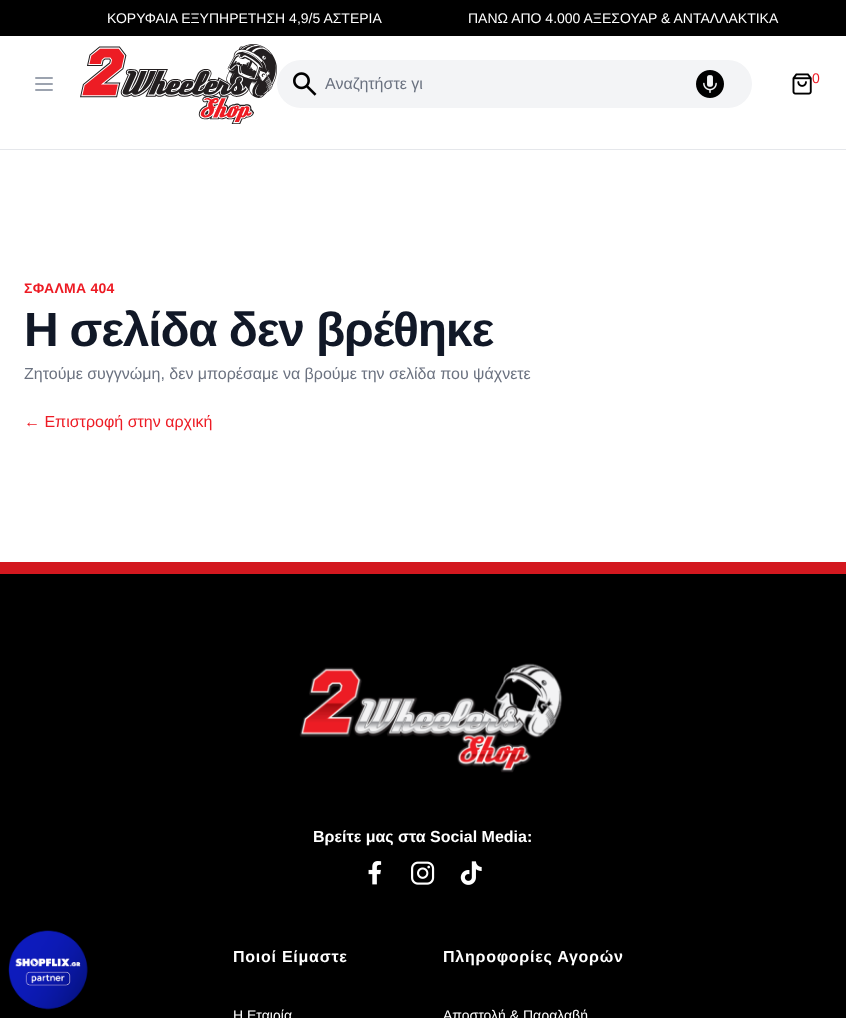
<svg xmlns="http://www.w3.org/2000/svg" width="846" height="1018">
	<rect width="100%" height="100%" fill="#FFFFFF" />
	<rect x="0" y="0" width="846" height="36" fill="#000000" />
	<g font-family="Liberation Sans" font-size="14" fill="#FFFFFF">
		<text x="107" y="23">ΚΟΡΥΦΑΙΑ ΕΞΥΠΗΡΕΤΗΣΗ 4,9/5 ΑΣΤΕΡΙΑ</text>
		<text x="468" y="23">ΠΑΝΩ ΑΠΟ 4.000 ΑΞΕΣΟΥΑΡ &amp; ΑΝΤΑΛΛΑΚΤΙΚΑ</text>
	</g>
	<path d="M36 78H52M36 84H52M36 90H52" fill="none" stroke="#9CA3AF" stroke-width="2" stroke-linecap="round" stroke-linejoin="round" />
	<image x="80" y="44" width="197" height="80" href="assets/img1.png" />
	<rect x="277" y="60" width="475" height="48" rx="24" fill="#F3F4F6" />
	<image x="293" y="72" width="24" height="24" href="assets/img2.png" />
	<image x="696" y="70" width="28" height="28" href="assets/img3.png" />
	<text x="325" y="89" font-family="Liberation Sans" font-size="16" fill="#6B7280">Αναζητήστε γι</text>
	<image x="792" y="73" width="20" height="22" href="assets/img4.png" />
	<text x="812" y="83" font-family="Liberation Sans" font-size="14" fill="#ED1B24">0</text>
	<rect x="0" y="149" width="846" height="1" fill="#E5E7EB" />
	<text x="24" y="293" font-family="Liberation Sans" font-size="14" font-weight="700" letter-spacing="0.25" fill="#ED1B24">ΣΦΑΛΜΑ 404</text>
	<text x="24" y="346" font-family="Liberation Sans" font-size="48" font-weight="700" letter-spacing="-1.2" fill="#111827">Η σελίδα δεν βρέθηκε</text>
	<text x="24" y="379" font-family="Liberation Sans" font-size="16" fill="#6B7280">Ζητούμε συγγνώμη, δεν μπορέσαμε να βρούμε την σελίδα που ψάχνετε</text>
	<text x="24" y="427" font-family="Liberation Sans" font-size="16" fill="#ED1B24">← Επιστροφή στην αρχική</text>
	<rect x="0" y="562" width="846" height="12" fill="#D3181F" />
	<rect x="0" y="574" width="846" height="444" fill="#000000" />
	<image x="8" y="930" width="80" height="80" href="assets/img5.png" />
	<image x="299" y="663" width="264" height="110" href="assets/img6.png" />
	<text x="313" y="842" font-family="Liberation Sans" font-size="16" font-weight="700" fill="#FFFFFF">Βρείτε μας στα Social Media:</text>
	<image x="368" y="861" width="14" height="24" href="assets/img7.png" />
	<image x="411" y="861" width="24" height="24" href="assets/img8.png" />
	<image x="460" y="861" width="22" height="24" href="assets/img9.png" />
	<text x="233" y="962" font-family="Liberation Sans" font-size="16" font-weight="700" letter-spacing="0.75" fill="#FFFFFF">Ποιοί Είμαστε</text>
	<text x="233" y="1020" font-family="Liberation Sans" font-size="14" fill="#FFFFFF">Η Εταιρία</text>
	<text x="443" y="962" font-family="Liberation Sans" font-size="16" font-weight="700" letter-spacing="0.75" fill="#FFFFFF">Πληροφορίες Αγορών</text>
	<text x="443" y="1020" font-family="Liberation Sans" font-size="14" fill="#FFFFFF">Αποστολή &amp; Παραλαβή</text>
</svg>
